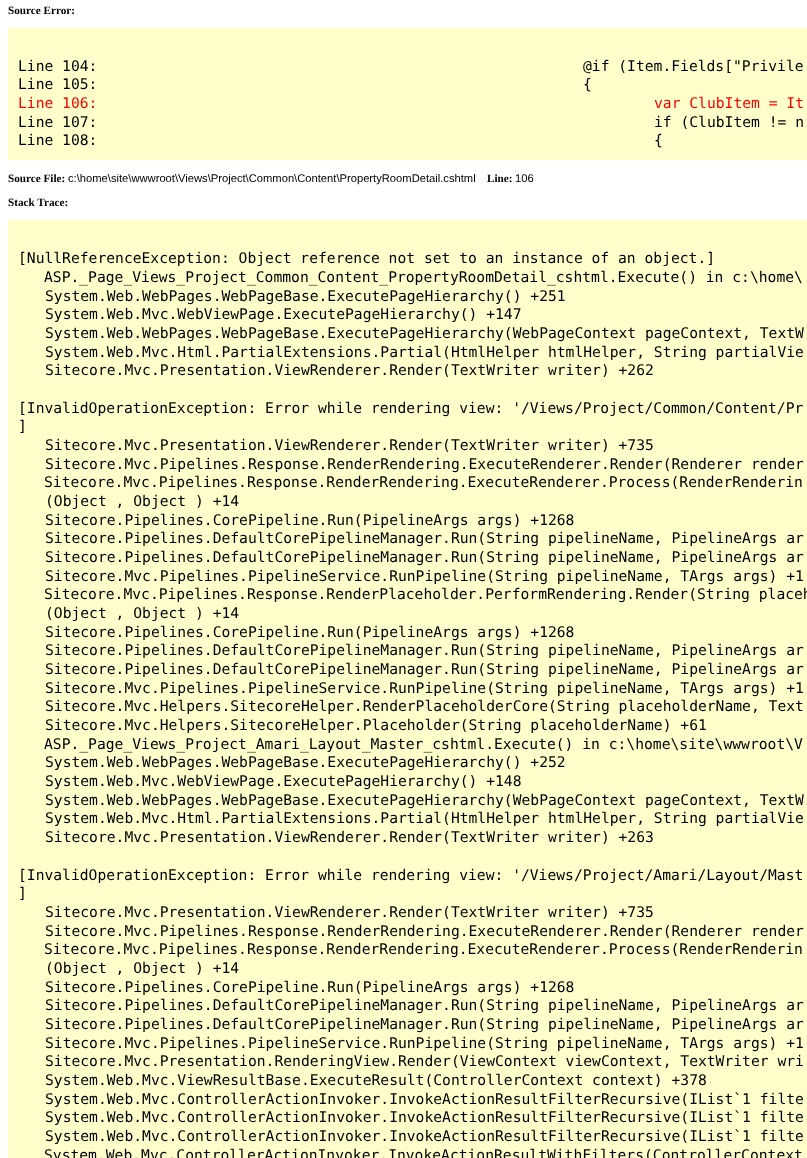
<svg xmlns="http://www.w3.org/2000/svg" width="807" height="1158">
	<rect width="100%" height="100%" fill="#FFFFFF" />
	<text x="8" y="14" font-family="Liberation Serif" font-size="11.2" font-weight="700" fill="#000000">Source Error:</text>
	<rect x="8" y="28" width="799" height="132" fill="#FFFFCC" />
	<g font-family="DejaVu Sans Mono" font-size="14.67" fill="#000000">
		<text x="18" y="71">Line 104:</text>
		<text x="583" y="71">@if (Item.Fields["Privile</text>
		<text x="18" y="89">Line 105:</text>
		<text x="583" y="89">{</text>
	</g>
	<g font-family="DejaVu Sans Mono" font-size="14.67" fill="#FF0000">
		<text x="18" y="108">Line 106:</text>
		<text x="654" y="108">var ClubItem = It</text>
	</g>
	<g font-family="DejaVu Sans Mono" font-size="14.67" fill="#000000">
		<text x="18" y="127">Line 107:</text>
		<text x="654" y="127">if (ClubItem != n</text>
		<text x="18" y="145">Line 108:</text>
		<text x="654" y="145">{</text>
	</g>
	<text x="8" y="182" font-family="Liberation Serif" font-size="11.2" font-weight="700" fill="#000000">Source File:</text>
	<text x="68" y="182" font-family="Liberation Sans" font-size="11.2" fill="#000000">c:\home\site\wwwroot\Views\Project\Common\Content\PropertyRoomDetail.cshtml</text>
	<text x="487" y="182" font-family="Liberation Serif" font-size="11.2" font-weight="700" fill="#000000">Line:</text>
	<text x="515" y="182" font-family="Liberation Sans" font-size="11.2" fill="#000000">106</text>
	<text x="8" y="206" font-family="Liberation Serif" font-size="11.2" font-weight="700" fill="#000000">Stack Trace:</text>
	<rect x="8" y="220" width="799" height="938" fill="#FFFFCC" />
	<g font-family="DejaVu Sans Mono" font-size="14.67" fill="#000000">
		<text x="18" y="263">[NullReferenceException: Object reference not set to an instance of an object.]</text>
		<text x="44" y="282">ASP._Page_Views_Project_Common_Content_PropertyRoomDetail_cshtml.Execute() in c:\home\</text>
		<text x="45" y="301">System.Web.WebPages.WebPageBase.ExecutePageHierarchy() +251</text>
		<text x="45" y="319">System.Web.Mvc.WebViewPage.ExecutePageHierarchy() +147</text>
		<text x="45" y="338">System.Web.WebPages.WebPageBase.ExecutePageHierarchy(WebPageContext pageContext, TextW</text>
		<text x="45" y="357">System.Web.Mvc.Html.PartialExtensions.Partial(HtmlHelper htmlHelper, String partialVie</text>
		<text x="45" y="375">Sitecore.Mvc.Presentation.ViewRenderer.Render(TextWriter writer) +262</text>
		<text x="18" y="413">[InvalidOperationException: Error while rendering view: '/Views/Project/Common/Content/Pr</text>
		<text x="18" y="431">]</text>
		<text x="45" y="450">Sitecore.Mvc.Presentation.ViewRenderer.Render(TextWriter writer) +735</text>
		<text x="45" y="469">Sitecore.Mvc.Pipelines.Response.RenderRendering.ExecuteRenderer.Render(Renderer render</text>
		<text x="44" y="487">Sitecore.Mvc.Pipelines.Response.RenderRendering.ExecuteRenderer.Process(RenderRenderin</text>
		<text x="45" y="506">(Object , Object ) +14</text>
		<text x="45" y="525">Sitecore.Pipelines.CorePipeline.Run(PipelineArgs args) +1268</text>
		<text x="45" y="543">Sitecore.Pipelines.DefaultCorePipelineManager.Run(String pipelineName, PipelineArgs ar</text>
		<text x="45" y="562">Sitecore.Pipelines.DefaultCorePipelineManager.Run(String pipelineName, PipelineArgs ar</text>
		<text x="45" y="581">Sitecore.Mvc.Pipelines.PipelineService.RunPipeline(String pipelineName, TArgs args) +1</text>
		<text x="44" y="599">Sitecore.Mvc.Pipelines.Response.RenderPlaceholder.PerformRendering.Render(String placeh</text>
		<text x="45" y="618">(Object , Object ) +14</text>
		<text x="45" y="637">Sitecore.Pipelines.CorePipeline.Run(PipelineArgs args) +1268</text>
		<text x="45" y="655">Sitecore.Pipelines.DefaultCorePipelineManager.Run(String pipelineName, PipelineArgs ar</text>
		<text x="45" y="674">Sitecore.Pipelines.DefaultCorePipelineManager.Run(String pipelineName, PipelineArgs ar</text>
		<text x="45" y="693">Sitecore.Mvc.Pipelines.PipelineService.RunPipeline(String pipelineName, TArgs args) +1</text>
		<text x="45" y="711">Sitecore.Mvc.Helpers.SitecoreHelper.RenderPlaceholderCore(String placeholderName, Text</text>
		<text x="45" y="730">Sitecore.Mvc.Helpers.SitecoreHelper.Placeholder(String placeholderName) +61</text>
		<text x="44" y="749">ASP._Page_Views_Project_Amari_Layout_Master_cshtml.Execute() in c:\home\site\wwwroot\V</text>
		<text x="45" y="767">System.Web.WebPages.WebPageBase.ExecutePageHierarchy() +252</text>
		<text x="45" y="786">System.Web.Mvc.WebViewPage.ExecutePageHierarchy() +148</text>
		<text x="45" y="805">System.Web.WebPages.WebPageBase.ExecutePageHierarchy(WebPageContext pageContext, TextW</text>
		<text x="45" y="823">System.Web.Mvc.Html.PartialExtensions.Partial(HtmlHelper htmlHelper, String partialVie</text>
		<text x="45" y="842">Sitecore.Mvc.Presentation.ViewRenderer.Render(TextWriter writer) +263</text>
		<text x="18" y="880">[InvalidOperationException: Error while rendering view: '/Views/Project/Amari/Layout/Mast</text>
		<text x="18" y="898">]</text>
		<text x="45" y="917">Sitecore.Mvc.Presentation.ViewRenderer.Render(TextWriter writer) +735</text>
		<text x="45" y="936">Sitecore.Mvc.Pipelines.Response.RenderRendering.ExecuteRenderer.Render(Renderer render</text>
		<text x="44" y="954">Sitecore.Mvc.Pipelines.Response.RenderRendering.ExecuteRenderer.Process(RenderRenderin</text>
		<text x="45" y="973">(Object , Object ) +14</text>
		<text x="45" y="992">Sitecore.Pipelines.CorePipeline.Run(PipelineArgs args) +1268</text>
		<text x="45" y="1010">Sitecore.Pipelines.DefaultCorePipelineManager.Run(String pipelineName, PipelineArgs ar</text>
		<text x="45" y="1029">Sitecore.Pipelines.DefaultCorePipelineManager.Run(String pipelineName, PipelineArgs ar</text>
		<text x="45" y="1048">Sitecore.Mvc.Pipelines.PipelineService.RunPipeline(String pipelineName, TArgs args) +1</text>
		<text x="45" y="1066">Sitecore.Mvc.Presentation.RenderingView.Render(ViewContext viewContext, TextWriter wri</text>
		<text x="45" y="1085">System.Web.Mvc.ViewResultBase.ExecuteResult(ControllerContext context) +378</text>
		<text x="45" y="1104">System.Web.Mvc.ControllerActionInvoker.InvokeActionResultFilterRecursive(IList`1 filte</text>
		<text x="45" y="1122">System.Web.Mvc.ControllerActionInvoker.InvokeActionResultFilterRecursive(IList`1 filte</text>
		<text x="45" y="1141">System.Web.Mvc.ControllerActionInvoker.InvokeActionResultFilterRecursive(IList`1 filte</text>
		<text x="44" y="1160">System.Web.Mvc.ControllerActionInvoker.InvokeActionResultWithFilters(ControllerContext</text>
	</g>
</svg>
